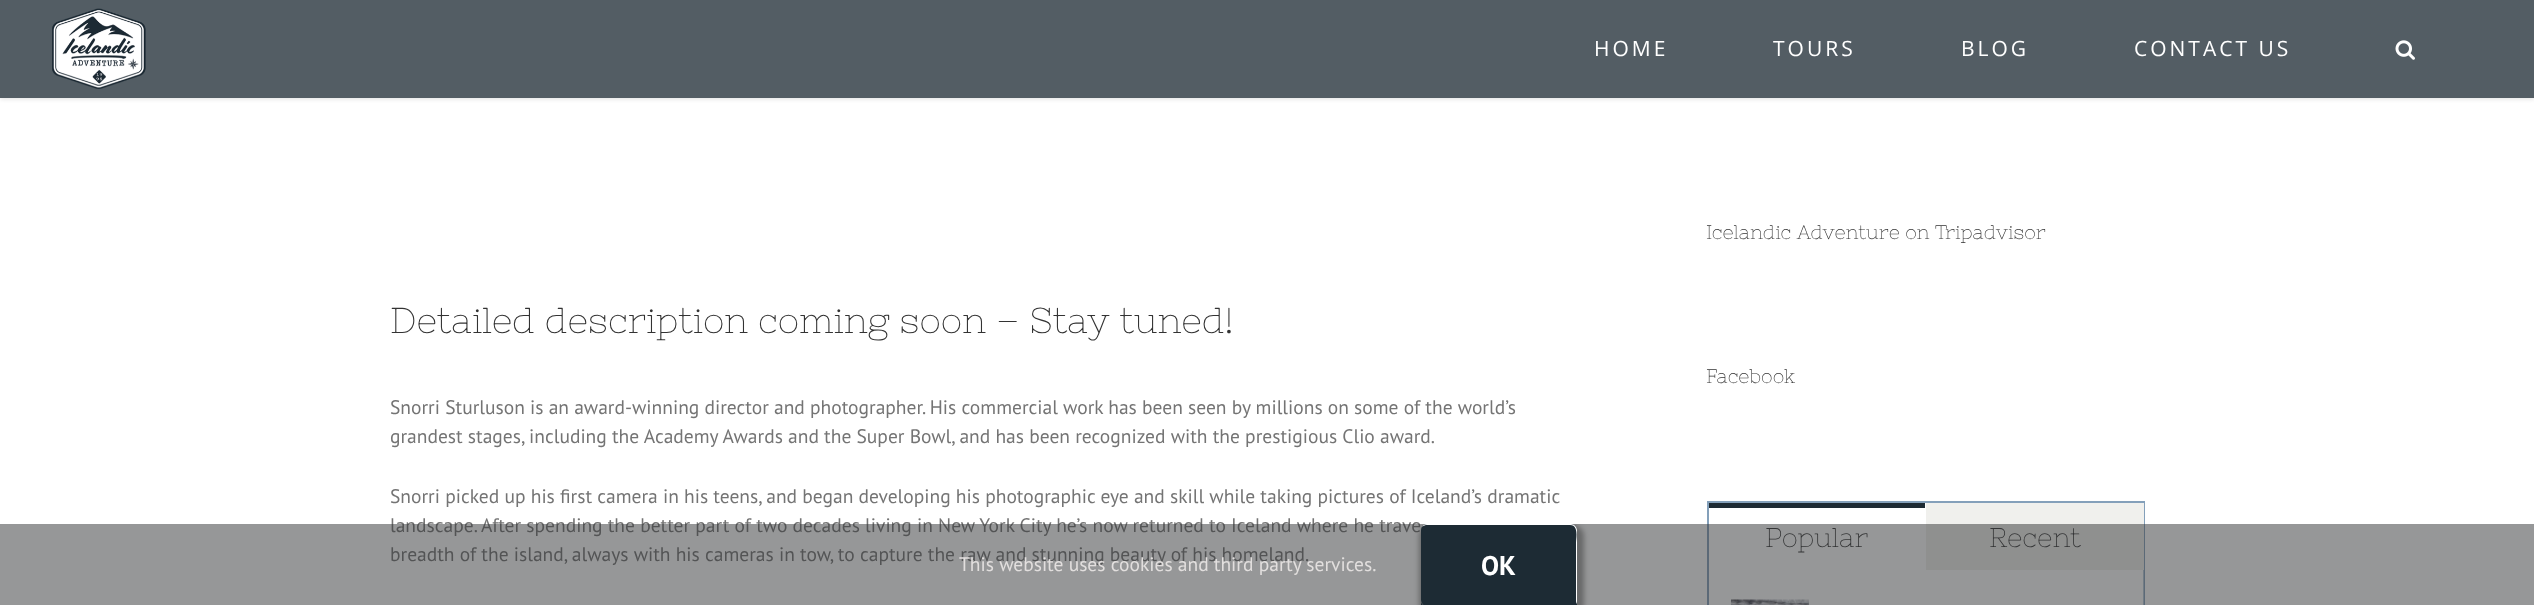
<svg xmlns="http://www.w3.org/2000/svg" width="2534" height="605">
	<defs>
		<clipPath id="clip1"><path d="M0 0H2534V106H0ZM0 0H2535V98H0Z" clip-rule="evenodd" /></clipPath>
		<clipPath id="clip2"><rect x="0" y="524" width="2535" height="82" /></clipPath>
	</defs>
	<rect width="100%" height="100%" fill="#FFFFFF" />
	<g clip-path="url(#clip1)">
		<rect x="0" y="2" width="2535" height="97" fill="#000000" fill-opacity="0.12" filter="blur(2px)" />
	</g>
	<rect x="0" y="0" width="2534" height="98" fill="#1D2A33" fill-opacity="0.76" />
	<image x="52" y="8" width="94" height="81" href="assets/img1.png" />
	<g font-family="Open Sans" font-size="21" letter-spacing="3" fill="#FFFFFF">
		<text x="1594" y="56">HOME</text>
		<text x="1773" y="56">TOURS</text>
		<text x="1961" y="56">BLOG</text>
		<text x="2134" y="56">CONTACT US</text>
	</g>
	<image x="2395" y="40" width="20" height="20" href="assets/img2.png" />
	<text x="390" y="333" font-family="Nixie One" font-size="36" fill="#333333">Detailed description coming soon – Stay tuned!</text>
	<g font-family="PT Sans" font-size="19.5" fill="#747474">
		<text x="390" y="414">Snorri Sturluson is an award-winning director and photographer. His commercial work has been seen by millions on some of the world’s</text>
		<text x="390" y="443">grandest stages, including the Academy Awards and the Super Bowl, and has been recognized with the prestigious Clio award.</text>
		<text x="390" y="503">Snorri picked up his first camera in his teens, and began developing his photographic eye and skill while taking pictures of Iceland’s dramatic</text>
		<text x="390" y="532">landscape. After spending the better part of two decades living in New York City he’s now returned to Iceland where he trave</text>
		<text x="390" y="561">breadth of the island, always with his cameras in tow, to capture the raw and stunning beauty of his homeland.</text>
	</g>
	<g font-family="Nixie One" font-size="19.5" fill="#333333">
		<text x="1706" y="239">Icelandic Adventure on Tripadvisor</text>
		<text x="1706" y="383">Facebook</text>
	</g>
	<rect x="1708" y="502" width="436" height="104" fill="none" stroke="#84A0BA" stroke-width="2" />
	<rect x="1709" y="503" width="216" height="5" fill="#1D2A33" />
	<text x="1765" y="547" font-family="Nixie One" font-size="27" fill="#333333">Popular</text>
	<rect x="1926" y="503" width="218" height="67" fill="#F0F0ED" />
	<text x="1989" y="547" font-family="Nixie One" font-size="27" fill="#333333">Recent</text>
	<rect x="2143" y="570" width="1" height="35" fill="#FFFFFF" fill-opacity="0.4" />
	<image x="1731" y="599" width="78" height="6" href="assets/img3.png" />
	<rect x="0" y="524" width="2534" height="81" fill="#363839" fill-opacity="0.52" />
	<text x="959" y="571" font-family="PT Sans" font-size="19.5" fill="#E2DFDE">This website uses cookies and third party services.</text>
	<g clip-path="url(#clip2)">
		<rect x="1419" y="525" width="165" height="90" rx="11" fill="#000000" fill-opacity="0.3" filter="blur(2.5px)" />
	</g>
	<path d="M1421 602V605C1421 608 1424 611 1427 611H1571C1574 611 1577 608 1577 605V534L1576 532V600C1576 603 1574 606 1570 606H1426C1424 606 1422 605 1421 602Z" fill="#1D2B34" />
	<rect x="1421" y="524" width="156" height="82" rx="6" fill="#1D2B34" />
	<path d="M1426 525H1570C1579 525 1576 538 1576 543V604C1577 603 1577 601 1577 600V530C1577 527 1574 524 1571 524H1427C1425 524 1423 525 1422 527C1423 526 1425 525 1426 525Z" fill="#FFFFFF" />
	<text x="1481" y="575" font-family="PT Sans" font-size="27" font-weight="700" fill="#FFFFFF">OK</text>
</svg>
